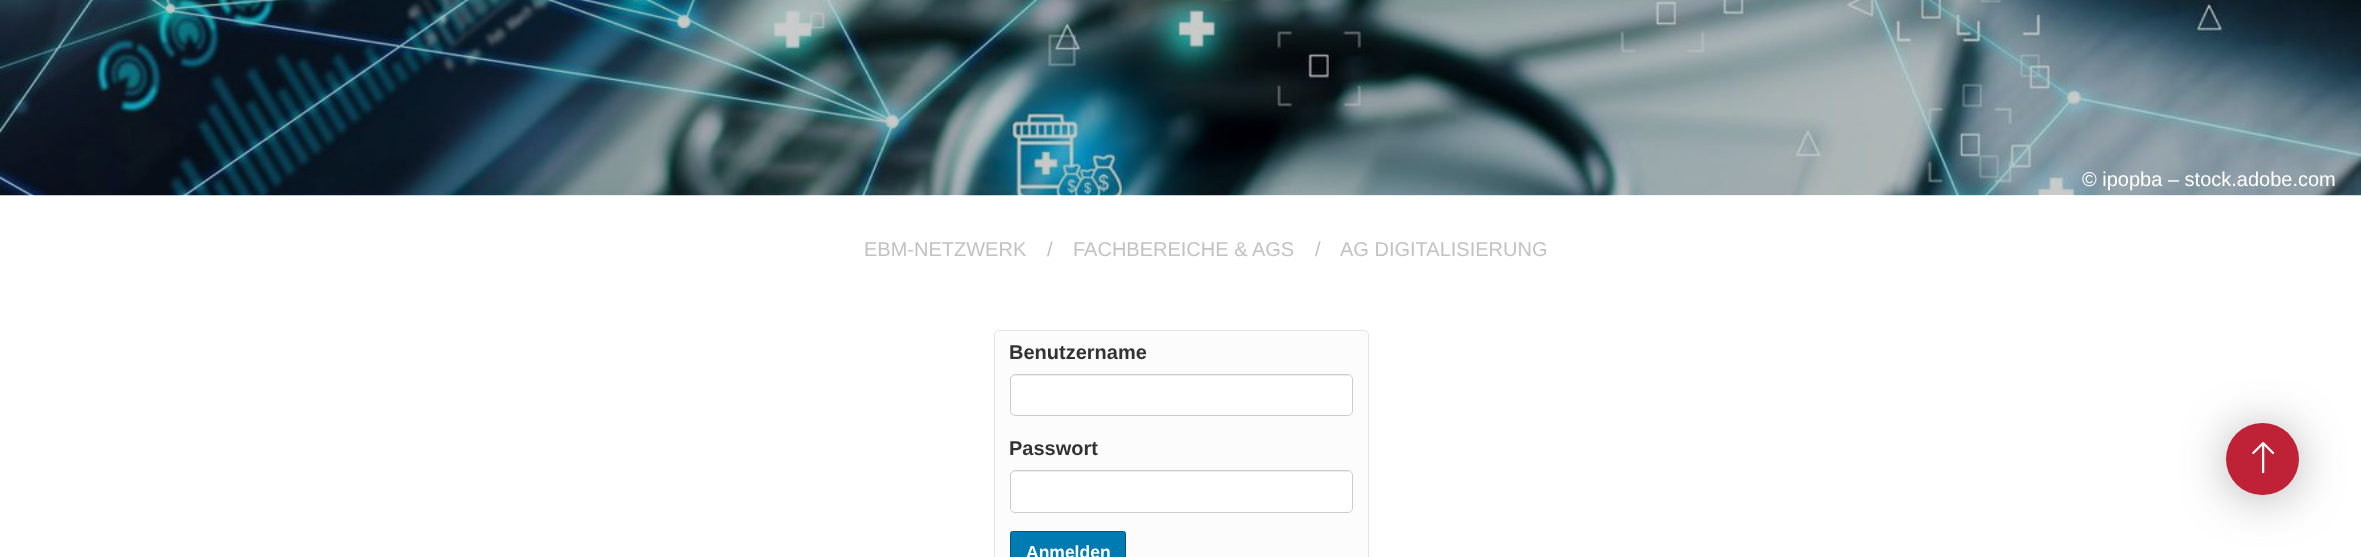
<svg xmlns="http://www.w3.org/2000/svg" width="2361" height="557">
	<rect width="100%" height="100%" fill="#FFFFFF" />
	<image x="0" y="0" width="2361" height="196" href="assets/img1.png" />
	<text x="2082" y="186" font-family="Liberation Sans" font-size="20" fill="#FFFFFF">© ipopba – stock.adobe.com</text>
	<g font-family="Liberation Sans" font-size="20" fill="#C2C2C2">
		<text x="864" y="256">EBM-NETZWERK</text>
		<text x="1047" y="256">/</text>
		<text x="1073" y="256">FACHBEREICHE &amp; AGS</text>
		<text x="1315" y="256">/</text>
		<text x="1340" y="256">AG DIGITALISIERUNG</text>
	</g>
	<rect x="994.5" y="330.5" width="374" height="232" rx="4.5" fill="#FCFCFD" stroke="#E5E5E5" />
	<text x="1009" y="359" font-family="Liberation Sans" font-size="20" font-weight="700" fill="#333333">Benutzername</text>
	<rect x="1010" y="374" width="343" height="42" rx="5" fill="#FFFFFF" />
	<path d="M1015 376H1348C1350 376 1351 378 1351 380V379C1351 377 1349 375 1347 375H1015C1013 375 1011 377 1011 379V380C1011 378 1013 376 1015 376Z" fill="#ECECEC" />
	<rect x="1010.5" y="374.5" width="342" height="41" rx="4.5" fill="none" stroke="#CCCCCC" />
	<text x="1009" y="455" font-family="Liberation Sans" font-size="20" font-weight="700" fill="#333333">Passwort</text>
	<rect x="1010" y="470" width="343" height="43" rx="5" fill="#FFFFFF" />
	<path d="M1015 472H1348C1350 472 1351 474 1351 476V475C1351 473 1349 471 1347 471H1015C1013 471 1011 473 1011 475V476C1011 474 1013 472 1015 472Z" fill="#ECECEC" />
	<rect x="1010.5" y="470.5" width="342" height="42" rx="4.5" fill="none" stroke="#CCCCCC" />
	<rect x="1010.5" y="531.5" width="115" height="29" rx="2" fill="#007BB1" stroke="#00587E" />
	<text x="1026" y="558" font-family="Liberation Sans" font-size="17.5" font-weight="700" fill="#FFFFFF">Anmelden</text>
	<rect x="2239" y="439" width="47" height="47" rx="23.5" fill="#474747" filter="blur(27.5px)" />
	<rect x="2226" y="423" width="73" height="72" rx="36" fill="#BF2236" />
	<image x="2252" y="442" width="23" height="32" href="assets/img2.png" />
</svg>
